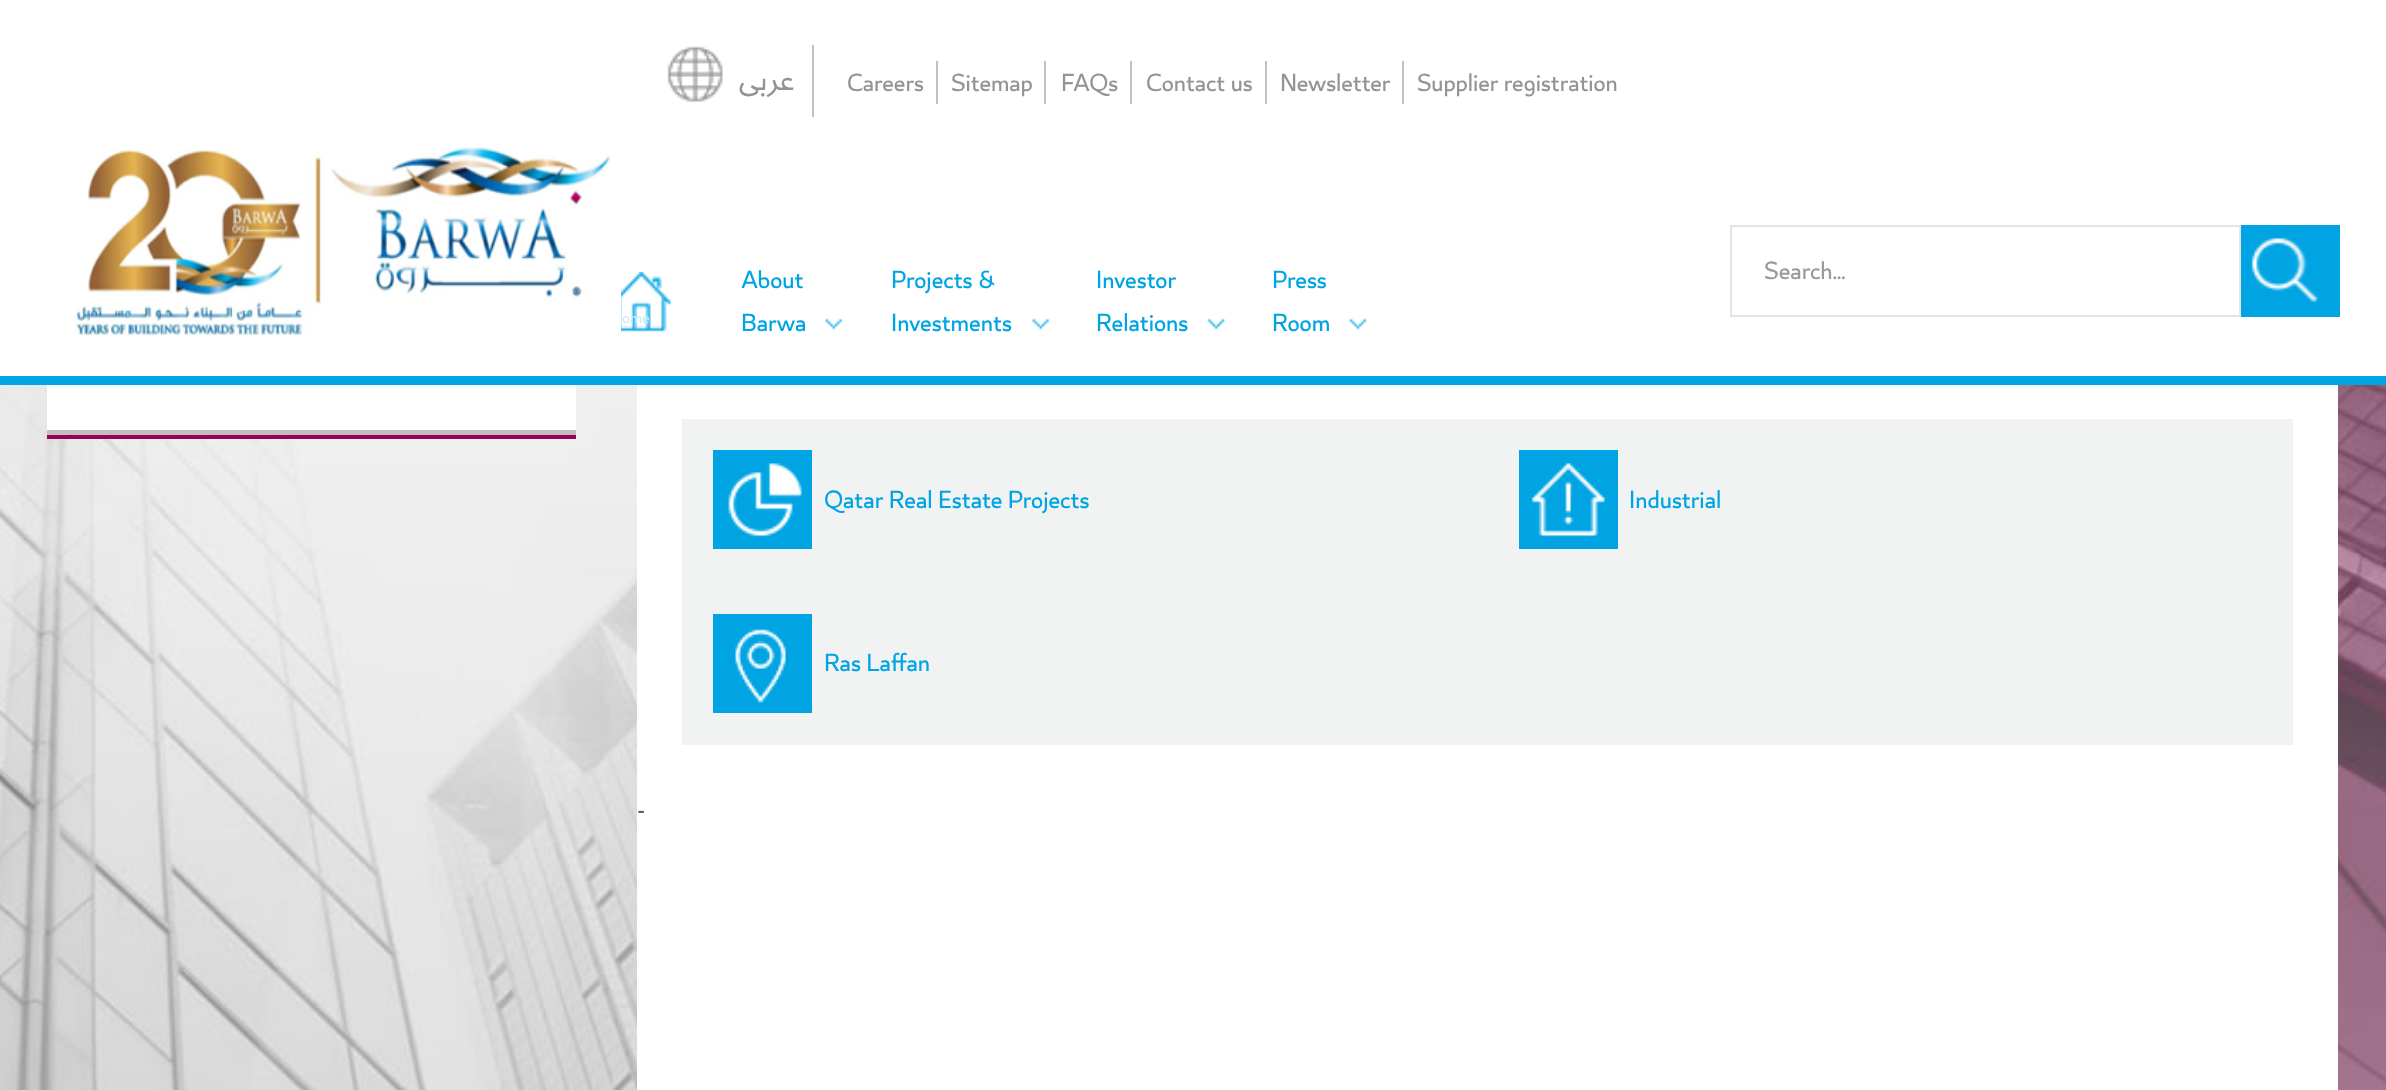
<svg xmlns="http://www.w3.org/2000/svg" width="2386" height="1090">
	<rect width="100%" height="100%" fill="#FFFFFF" />
	<rect x="0" y="376" width="2386" height="9" fill="#00A4E3" />
	<image x="667" y="46" width="56" height="56" href="assets/img1.png" />
	<rect x="812" y="45" width="2" height="72" fill="#C2C2C2" />
	<text x="795" y="90" font-family="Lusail" font-size="32" direction="rtl" fill="#929597">عربى</text>
	<g font-family="Lusail" font-size="27.25" fill="#929597">
		<text x="847" y="91">Careers</text>
		<text x="951" y="91">Sitemap</text>
	</g>
	<rect x="936" y="61" width="2" height="43" fill="#C2C2C2" />
	<text x="1061" y="91" font-family="Lusail" font-size="27.25" fill="#929597">FAQs</text>
	<rect x="1044" y="61" width="2" height="43" fill="#C2C2C2" />
	<text x="1146" y="91" font-family="Lusail" font-size="27.25" fill="#929597">Contact us</text>
	<rect x="1130" y="61" width="2" height="43" fill="#C2C2C2" />
	<text x="1280" y="91" font-family="Lusail" font-size="27.25" fill="#929597">Newsletter</text>
	<rect x="1265" y="61" width="2" height="43" fill="#C2C2C2" />
	<text x="1417" y="91" font-family="Lusail" font-size="27.25" fill="#929597">Supplier registration</text>
	<rect x="1402" y="61" width="2" height="43" fill="#C2C2C2" />
	<image x="73" y="147" width="548" height="189" href="assets/img2.png" />
	<image x="621" y="272" width="51" height="60" href="assets/img3.png" />
	<text x="622" y="323" font-family="Lusail" font-size="18" fill="#CBECF9">ome</text>
	<g font-family="Lusail" font-size="27.5" fill="#00A4E3">
		<text x="741" y="288">About</text>
		<text x="741" y="331">Barwa</text>
	</g>
	<image x="825" y="318" width="18" height="12" href="assets/img4.png" />
	<g font-family="Lusail" font-size="27.5" fill="#00A4E3">
		<text x="891" y="288">Projects &amp;</text>
		<text x="891" y="331">Investments</text>
	</g>
	<image x="1032" y="318" width="18" height="12" href="assets/img4.png" />
	<g font-family="Lusail" font-size="27.5" fill="#00A4E3">
		<text x="1096" y="288">Investor</text>
		<text x="1096" y="331">Relations</text>
	</g>
	<image x="1207" y="318" width="19" height="12" href="assets/img5.png" />
	<g font-family="Lusail" font-size="27.5" fill="#00A4E3">
		<text x="1272" y="288">Press</text>
		<text x="1272" y="331">Room</text>
	</g>
	<image x="1349" y="318" width="18" height="12" href="assets/img6.png" />
	<rect x="1731" y="226" width="509" height="90" fill="none" stroke="#E4E4E4" stroke-width="2" />
	<text x="1764" y="279" font-family="Lusail" font-size="27.5" fill="#9A9A9A">Search...</text>
	<rect x="2241" y="225" width="99" height="92" fill="#00A4E3" />
	<image x="2251" y="238" width="68" height="65" href="assets/img7.png" />
	<image x="0" y="385" width="2386" height="705" href="assets/img8.png" />
	<rect x="47" y="435" width="529" height="4" fill="#9B0058" />
	<rect x="47" y="385" width="529" height="45" fill="#FFFFFF" />
	<rect x="47" y="430" width="529" height="5" fill="#C0C0C0" />
	<rect x="637" y="385" width="1701" height="705" fill="#FFFFFF" />
	<rect x="682" y="419" width="1611" height="326" fill="#F1F2F2" />
	<rect x="713" y="450" width="99" height="99" fill="#00A4E3" />
	<image x="728" y="463" width="74" height="74" href="assets/img9.png" />
	<text x="824" y="508" font-family="Lusail" font-size="27.5" fill="#00A4E3">Qatar Real Estate Projects</text>
	<rect x="1519" y="450" width="99" height="99" fill="#00A4E3" />
	<image x="1531" y="463" width="74" height="74" href="assets/img10.png" />
	<text x="1629" y="508" font-family="Lusail" font-size="27.5" fill="#00A4E3">Industrial</text>
	<rect x="713" y="614" width="99" height="99" fill="#00A4E3" />
	<image x="735" y="629" width="51" height="74" href="assets/img11.png" />
	<text x="824" y="671" font-family="Lusail" font-size="27.5" fill="#00A4E3">Ras Laffan</text>
	<text x="637" y="819" font-family="Lusail" font-size="27.5" fill="#58595B">-</text>
</svg>
